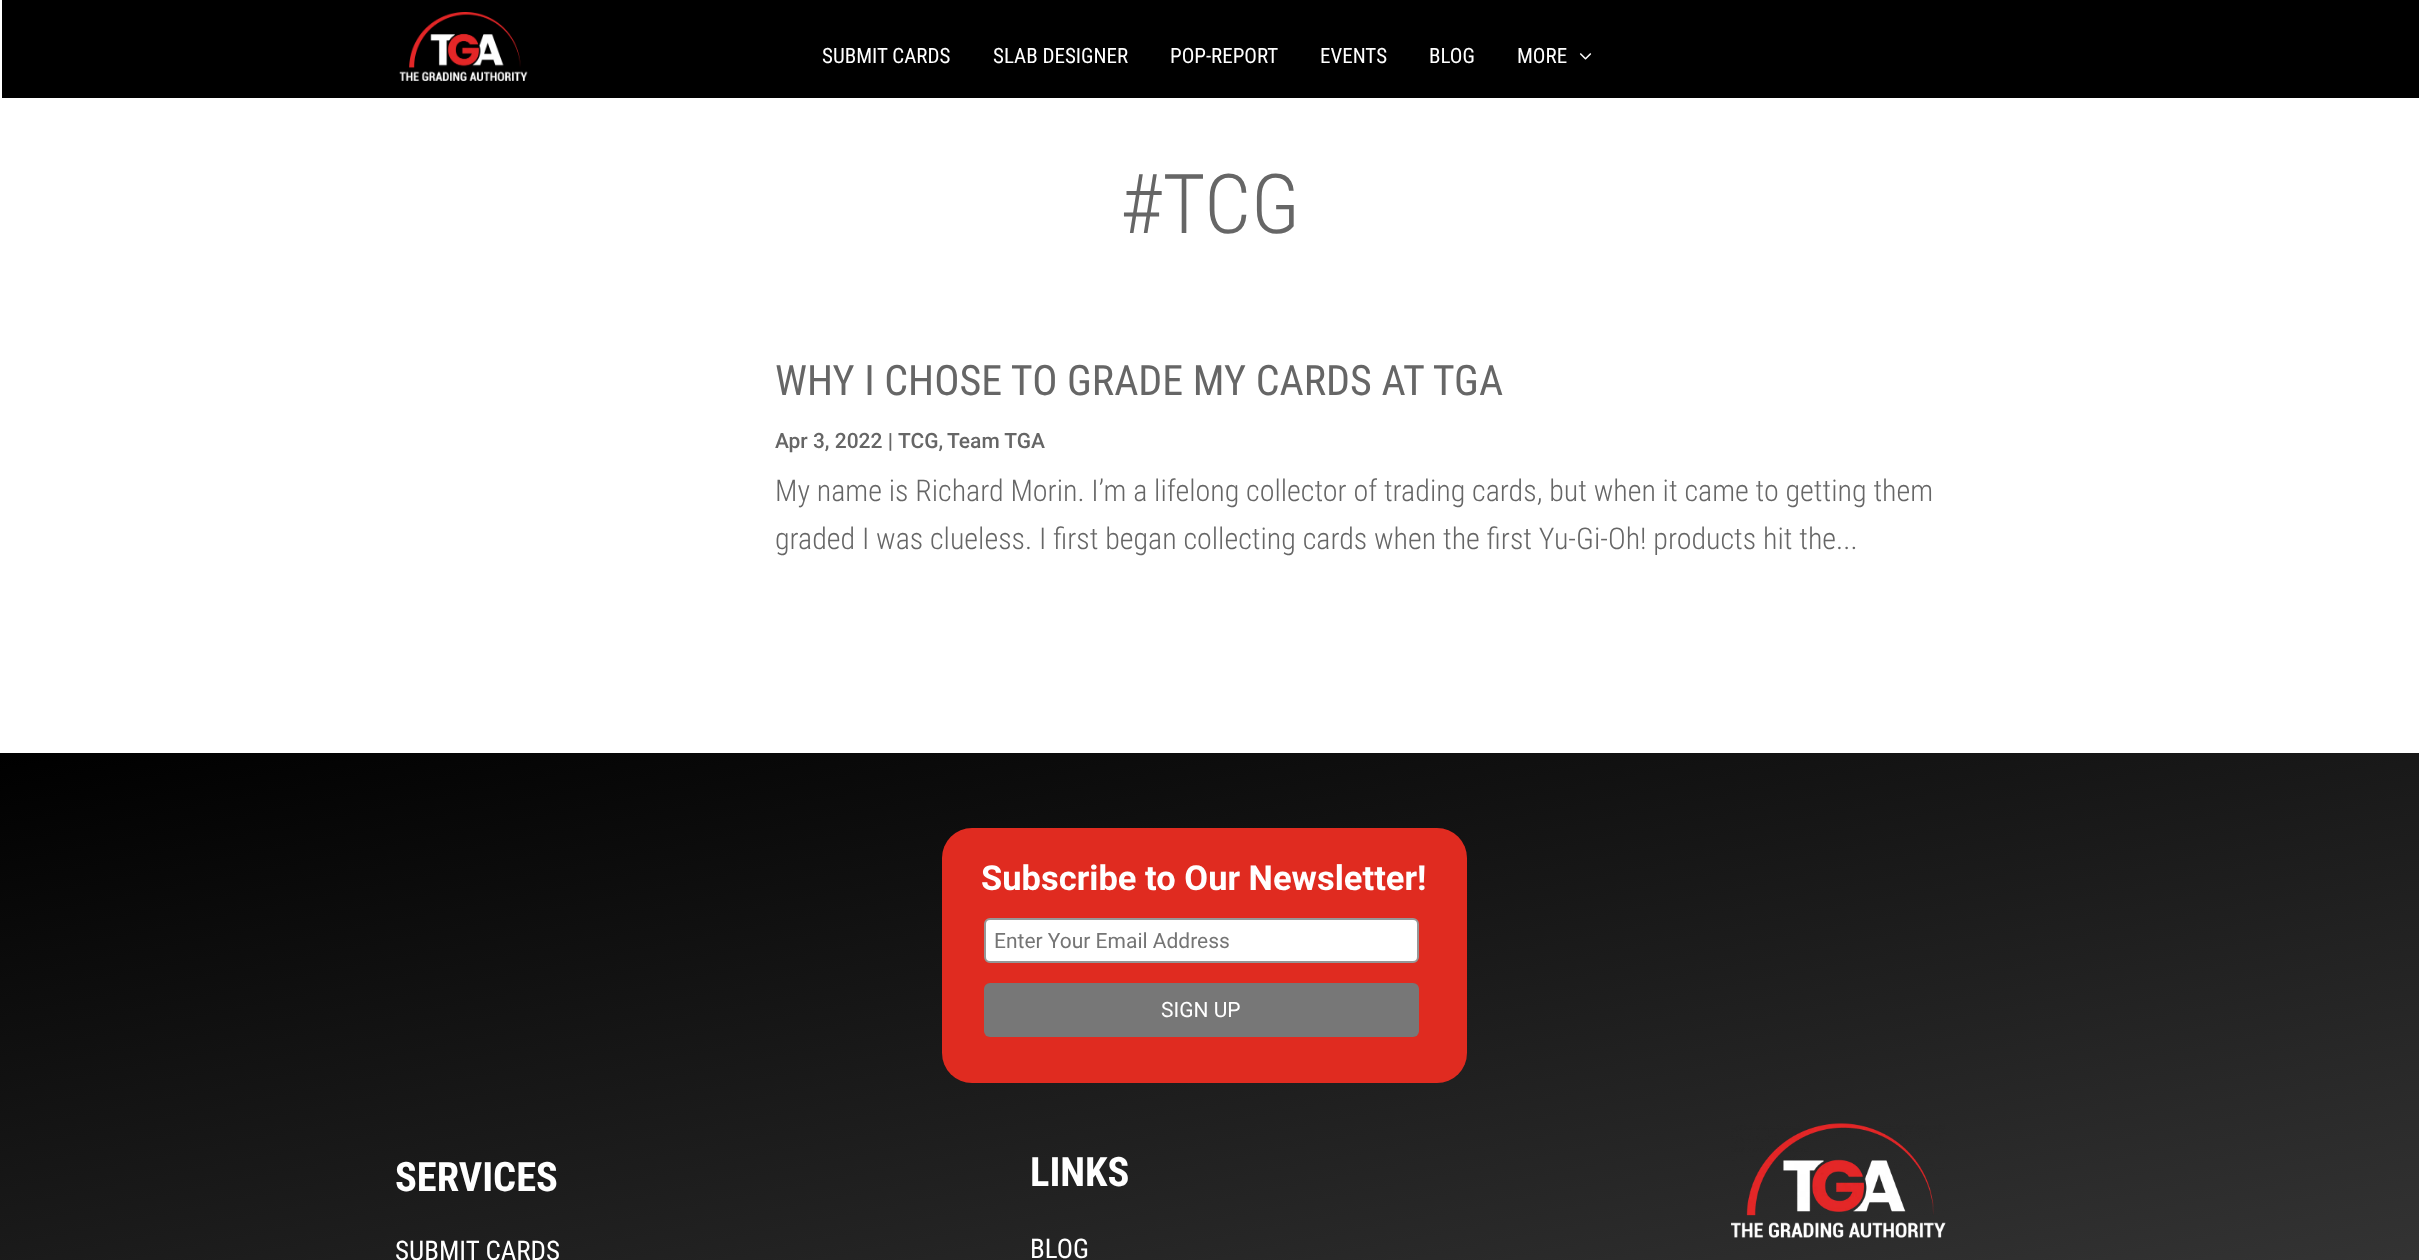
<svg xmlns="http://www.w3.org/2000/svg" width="2419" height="1260">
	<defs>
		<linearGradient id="g1" gradientUnits="userSpaceOnUse" x1="1065" y1="546" x2="1355" y2="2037"><stop offset="0" stop-color="#000000" /><stop offset="1" stop-color="#515151" /></linearGradient>
	</defs>
	<rect width="100%" height="100%" fill="#FFFFFF" />
	<rect x="2" y="0" width="2417" height="98" fill="#000000" />
	<image x="399" y="12" width="129" height="69" href="assets/img1.png" />
	<g font-family="Roboto Condensed" font-size="21" fill="#FFFFFF">
		<text x="822" y="63">SUBMIT CARDS</text>
		<text x="993" y="63">SLAB DESIGNER</text>
		<text x="1170" y="63">POP-REPORT</text>
		<text x="1320" y="63">EVENTS</text>
		<text x="1429" y="63">BLOG</text>
		<text x="1517" y="63">MORE</text>
	</g>
	<image x="1579" y="53" width="13" height="7" href="assets/img2.png" />
	<text x="1120" y="233" font-family="Roboto Condensed" font-size="82.5" font-weight="300" fill="#666666">#TCG</text>
	<text x="775" y="395" font-family="Roboto Condensed" font-size="42" fill="#666666">WHY I CHOSE TO GRADE MY CARDS AT TGA</text>
	<g font-family="Roboto" font-size="21" font-weight="500" fill="#666666">
		<text x="775" y="448">Apr 3, 2022 |</text>
		<text x="898" y="448">TCG,</text>
		<text x="947" y="448">Team TGA</text>
	</g>
	<g font-family="Roboto Condensed" font-size="30" font-weight="300" fill="#666666">
		<text x="775" y="501">My name is Richard Morin. I’m a lifelong collector of trading cards, but when it came to getting them</text>
		<text x="775" y="549">graded I was clueless. I first began collecting cards when the first Yu-Gi-Oh! products hit the...</text>
	</g>
	<rect x="0" y="753" width="2419" height="507" fill="url(#g1)" />
	<rect x="942" y="828" width="525" height="255" rx="30" fill="#E02B20" />
	<text x="981" y="890" font-family="Roboto" font-size="34.5" font-weight="700" fill="#FFFFFF">Subscribe to Our Newsletter!</text>
	<rect x="985" y="919" width="433" height="43" rx="5" fill="#FFFFFF" stroke="#979797" stroke-width="2" />
	<text x="994" y="948" font-family="Roboto" font-size="21" fill="#757575">Enter Your Email Address</text>
	<rect x="984" y="983" width="435" height="54" rx="6" fill="#777777" />
	<text x="1161" y="1017" font-family="Roboto" font-size="21" fill="#FFFFFF">SIGN UP</text>
	<text x="395" y="1191" font-family="Roboto Condensed" font-size="40.5" font-weight="700" fill="#FFFFFF">SERVICES</text>
	<text x="395" y="1260" font-family="Roboto Condensed" font-size="27" fill="#FFFFFF">SUBMIT CARDS</text>
	<text x="1030" y="1186" font-family="Roboto Condensed" font-size="40.5" font-weight="700" fill="#FFFFFF">LINKS</text>
	<text x="1030" y="1258" font-family="Roboto Condensed" font-size="27" fill="#FFFFFF">BLOG</text>
	<image x="1731" y="1123" width="215" height="115" href="assets/img3.png" />
</svg>
